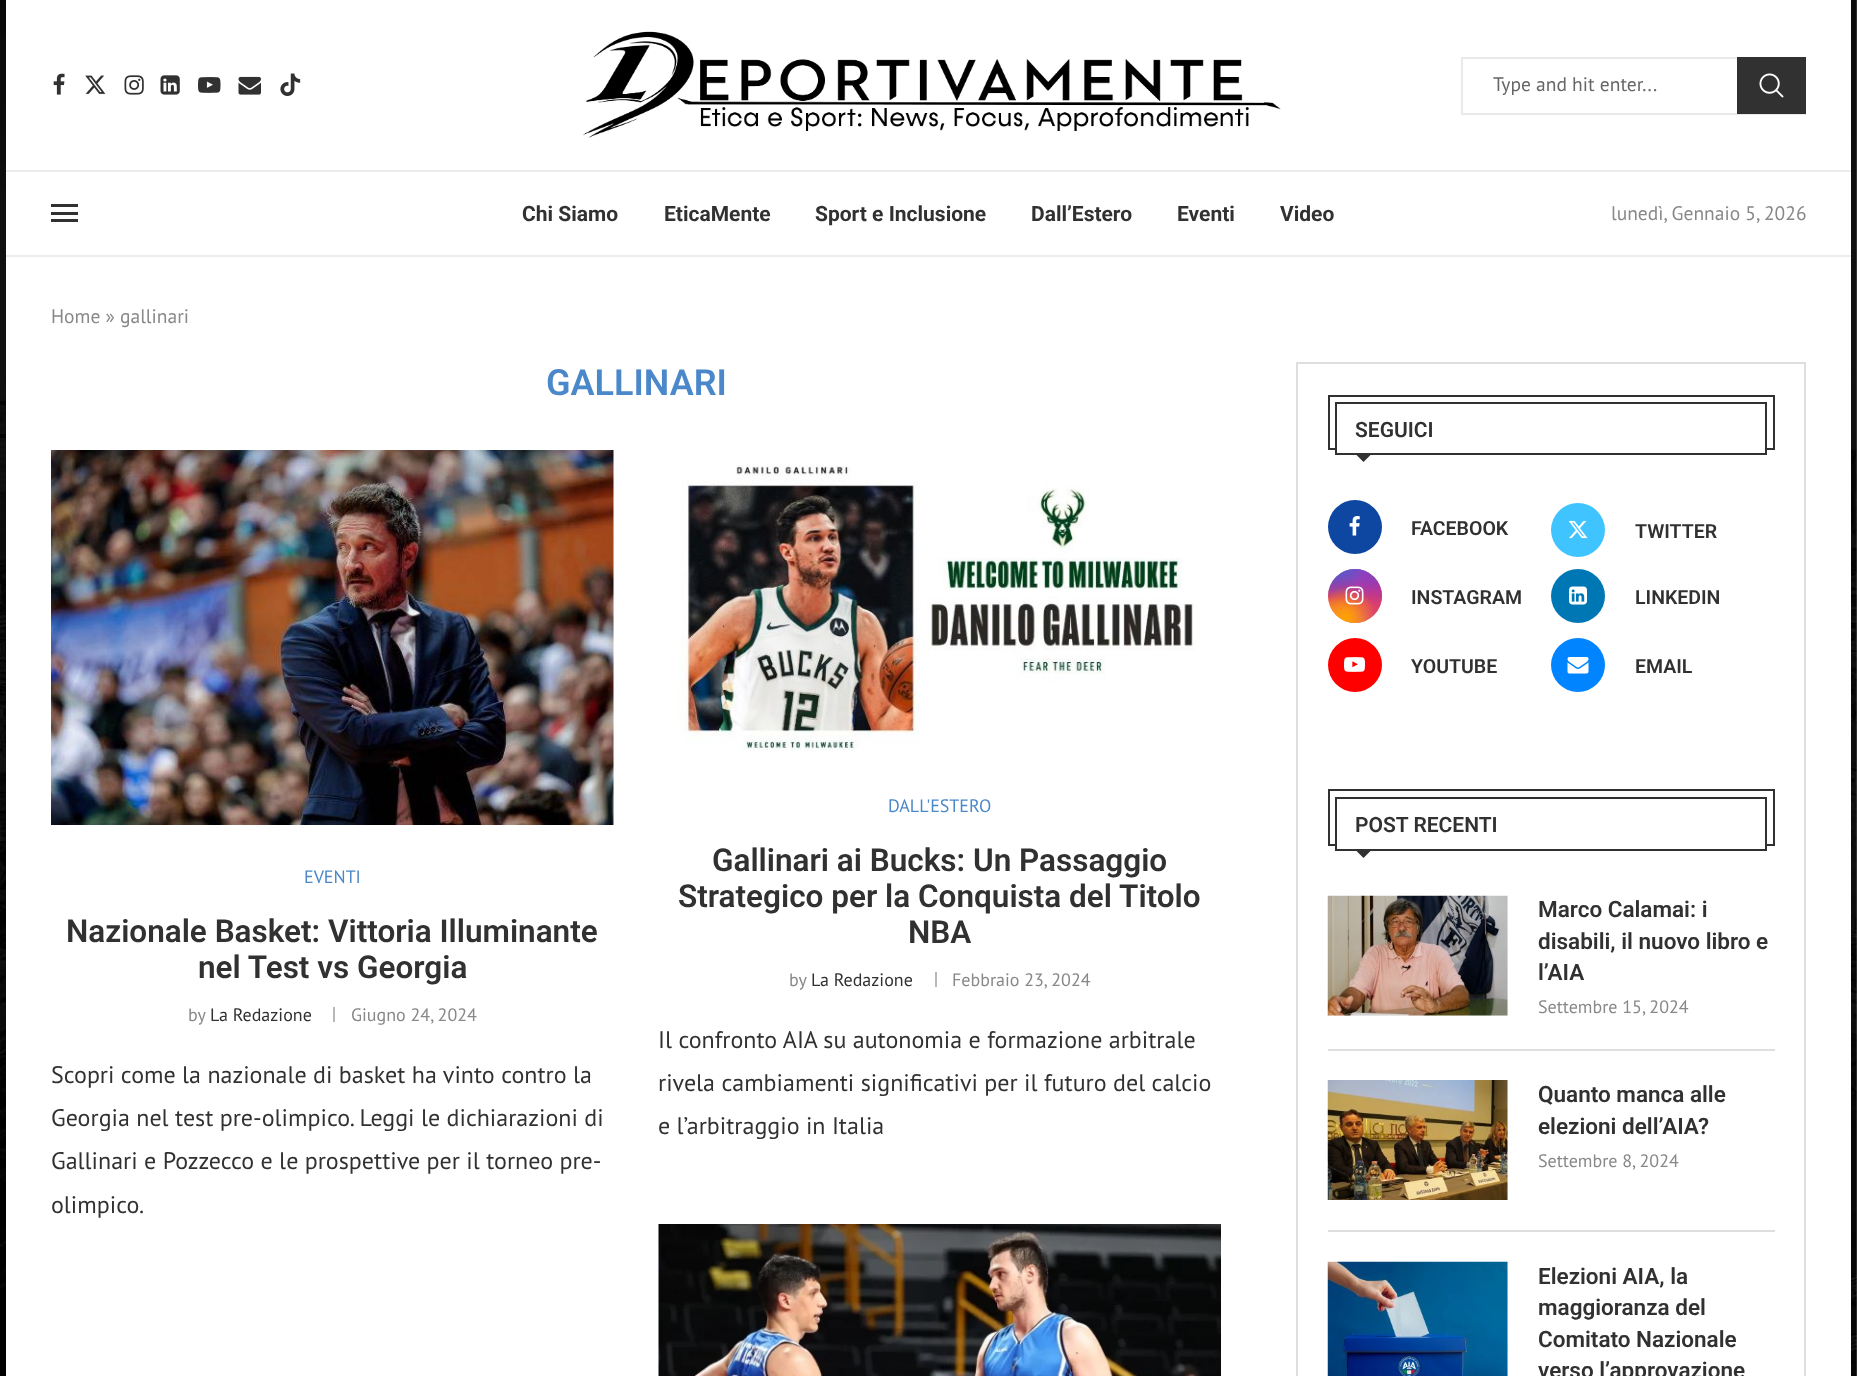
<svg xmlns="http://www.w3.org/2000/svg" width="1857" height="1376">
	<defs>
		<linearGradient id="g1" gradientUnits="userSpaceOnUse" x1="1355" y1="569" x2="1355" y2="623"><stop offset="0" stop-color="#6559CA" /><stop offset="0.3" stop-color="#BC318F" /><stop offset="0.5" stop-color="#E33F5F" /><stop offset="0.7" stop-color="#F77638" /><stop offset="1" stop-color="#FEC66D" /></linearGradient>
		<radialGradient id="g2" gradientUnits="userSpaceOnUse" cx="1382" cy="623" r="76"><stop offset="0" stop-color="#D43178" /><stop offset="1" stop-color="#D43178" stop-opacity="0" /></radialGradient>
		<radialGradient id="g3" gradientUnits="userSpaceOnUse" cx="0" cy="0" r="1" gradientTransform="matrix(46 0 0 92 1360 558)"><stop offset="0" stop-color="#8F44C7" /><stop offset="0.5" stop-color="#8F44C7" stop-opacity="0" /></radialGradient>
		<radialGradient id="g4" gradientUnits="userSpaceOnUse" cx="1382" cy="569" r="76"><stop offset="0" stop-color="#893DC2" /><stop offset="0.5" stop-color="#893DC2" stop-opacity="0" /></radialGradient>
		<radialGradient id="g5" gradientUnits="userSpaceOnUse" cx="0" cy="0" r="1" gradientTransform="matrix(61 0 0 115 1338 542)"><stop offset="0" stop-color="#5258CF" /><stop offset="0.5" stop-color="#5258CF" stop-opacity="0" /></radialGradient>
		<radialGradient id="g6" gradientUnits="userSpaceOnUse" cx="0" cy="0" r="1" gradientTransform="matrix(76 0 0 95 1328 555)"><stop offset="0" stop-color="#5258CF" /><stop offset="0.5" stop-color="#5258CF" stop-opacity="0" /></radialGradient>
		<radialGradient id="g7" gradientUnits="userSpaceOnUse" cx="1328" cy="644" r="93"><stop offset="0" stop-color="#EFA11C" /><stop offset="0.5" stop-color="#EFA11C" stop-opacity="0" /></radialGradient>
		<radialGradient id="g8" gradientUnits="userSpaceOnUse" cx="1346" cy="617" r="60"><stop offset="0" stop-color="#FFA100" /><stop offset="0.5" stop-color="#FFA100" stop-opacity="0" /></radialGradient>
	</defs>
	<rect width="100%" height="100%" fill="#FFFFFF" />
	<image x="0" y="0" width="1857" height="1376" href="assets/img1.png" />
	<rect x="6" y="0" width="1845" height="1376" fill="#FFFFFF" />
	<image x="53" y="73" width="12" height="22" href="assets/img2.png" />
	<image x="85" y="75" width="21" height="19" href="assets/img3.png" />
	<image x="124" y="75" width="20" height="20" href="assets/img4.png" />
	<image x="160" y="75" width="20" height="20" href="assets/img5.png" />
	<image x="198" y="77" width="23" height="16" href="assets/img6.png" />
	<image x="238" y="76" width="23" height="19" href="assets/img7.png" />
	<image x="280" y="73" width="21" height="23" href="assets/img8.png" />
	<image x="583" y="31" width="698" height="107" href="assets/img9.png" />
	<rect x="1461" y="57" width="276" height="2" fill="#E9E9E9" />
	<rect x="1461" y="113" width="345" height="2" fill="#E9E9E9" />
	<rect x="1461" y="57" width="2" height="57" fill="#E9E9E9" />
	<text x="1493" y="91" font-family="PT Sans" font-size="19.5" fill="#666666">Type and hit enter...</text>
	<rect x="1737" y="57" width="69" height="57" fill="#313131" />
	<image x="1759" y="73" width="25" height="25" href="assets/img10.png" />
	<rect x="6" y="170" width="1845" height="2" fill="#EDEDED" />
	<rect x="6" y="255" width="1845" height="2" fill="#EDEDED" />
	<rect x="51" y="204" width="27" height="3" fill="#313131" />
	<rect x="51" y="219" width="27" height="3" fill="#313131" />
	<rect x="51" y="212" width="27" height="3" fill="#313131" />
	<g font-family="Roboto" font-size="21" font-weight="700" fill="#313131">
		<text x="522" y="221">Chi Siamo</text>
		<text x="664" y="221">EticaMente</text>
		<text x="815" y="221">Sport e Inclusione</text>
		<text x="1031" y="221">Dall’Estero</text>
		<text x="1177" y="221">Eventi</text>
		<text x="1280" y="221">Video</text>
	</g>
	<g font-family="PT Sans" font-size="19.5" fill="#888888">
		<text x="1611" y="220">lunedì, Gennaio 5, 2026</text>
		<text x="51" y="323">Home » gallinari</text>
	</g>
	<text x="546" y="395" font-family="Roboto" font-size="36" font-weight="600" fill="#4B88CA">GALLINARI</text>
	<image x="51" y="450" width="563" height="375" href="assets/img11.png" />
	<text x="304" y="883" font-family="PT Sans" font-size="18" fill="#4B88CA">EVENTI</text>
	<g font-family="Roboto" font-size="31.5" font-weight="600" fill="#313131">
		<text x="66" y="942">Nazionale Basket: Vittoria Illuminante</text>
		<text x="198" y="978">nel Test vs Georgia</text>
	</g>
	<text x="188" y="1021" font-family="PT Sans" font-size="18" fill="#888888">by</text>
	<text x="210" y="1021" font-family="PT Sans" font-size="18" fill="#313131">La Redazione</text>
	<rect x="333" y="1007" width="2" height="15" fill="#B8B8B8" />
	<text x="351" y="1021" font-family="PT Sans" font-size="18" fill="#888888">Giugno 24, 2024</text>
	<g font-family="PT Sans" font-size="24" fill="#313131">
		<text x="51" y="1083">Scopri come la nazionale di basket ha vinto contro la</text>
		<text x="51" y="1126">Georgia nel test pre-olimpico. Leggi le dichiarazioni di</text>
		<text x="51" y="1169">Gallinari e Pozzecco e le prospettive per il torneo pre-</text>
		<text x="51" y="1213">olimpico.</text>
	</g>
	<image x="678" y="465" width="519" height="286" href="assets/img12.png" />
	<text x="888" y="812" font-family="PT Sans" font-size="18" fill="#4B88CA">DALL'ESTERO</text>
	<g font-family="Roboto" font-size="31.5" font-weight="600" fill="#313131">
		<text x="712" y="871">Gallinari ai Bucks: Un Passaggio</text>
		<text x="678" y="907">Strategico per la Conquista del Titolo</text>
		<text x="908" y="943">NBA</text>
	</g>
	<text x="789" y="986" font-family="PT Sans" font-size="18" fill="#888888">by</text>
	<text x="811" y="986" font-family="PT Sans" font-size="18" fill="#313131">La Redazione</text>
	<rect x="935" y="972" width="2" height="15" fill="#B8B8B8" />
	<text x="952" y="986" font-family="PT Sans" font-size="18" fill="#888888">Febbraio 23, 2024</text>
	<g font-family="PT Sans" font-size="24" fill="#313131">
		<text x="658" y="1048">Il confronto AIA su autonomia e formazione arbitrale</text>
		<text x="658" y="1091">rivela cambiamenti significativi per il futuro del calcio</text>
		<text x="658" y="1134">e l’arbitraggio in Italia</text>
	</g>
	<image x="658" y="1224" width="563" height="152" href="assets/img13.png" />
	<rect x="1297" y="363" width="508" height="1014" fill="none" stroke="#DEDEDE" stroke-width="2" />
	<rect x="1329" y="396" width="445" height="53" fill="none" stroke="#313131" stroke-width="2" />
	<rect x="1337" y="448" width="428" height="2" fill="#FFFFFF" />
	<rect x="1336" y="403" width="430" height="51" fill="none" stroke="#313131" stroke-width="2" />
	<text x="1355" y="437" font-family="Roboto" font-size="21" font-weight="600" fill="#313131">SEGUICI</text>
	<path d="M1354.5 453H1372.5L1363.5 462Z" fill="#313131" />
	<circle cx="1355" cy="527" r="27" fill="#0D47A1" />
	<image x="1349" y="516" width="11" height="20" href="assets/img14.png" />
	<text x="1411" y="535" font-family="Roboto" font-size="19.5" font-weight="600" fill="#313131">FACEBOOK</text>
	<circle cx="1578" cy="530" r="27" fill="#40C4FF" />
	<image x="1568" y="520" width="20" height="19" href="assets/img15.png" />
	<text x="1635" y="538" font-family="Roboto" font-size="19.5" font-weight="600" fill="#313131">TWITTER</text>
	<circle cx="1355" cy="596" r="27" fill="url(#g1)" />
	<circle cx="1355" cy="596" r="27" fill="url(#g2)" />
	<circle cx="1355" cy="596" r="27" fill="url(#g3)" />
	<circle cx="1355" cy="596" r="27" fill="url(#g4)" />
	<circle cx="1355" cy="596" r="27" fill="url(#g5)" />
	<circle cx="1355" cy="596" r="27" fill="url(#g6)" />
	<circle cx="1355" cy="596" r="27" fill="url(#g7)" />
	<circle cx="1355" cy="596" r="27" fill="url(#g8)" />
	<image x="1345" y="586" width="19" height="19" href="assets/img16.png" />
	<text x="1411" y="604" font-family="Roboto" font-size="19.5" font-weight="600" fill="#313131">INSTAGRAM</text>
	<circle cx="1578" cy="596" r="27" fill="#0077B5" />
	<image x="1569" y="586" width="18" height="19" href="assets/img17.png" />
	<text x="1635" y="604" font-family="Roboto" font-size="19.5" font-weight="600" fill="#313131">LINKEDIN</text>
	<circle cx="1355" cy="665" r="27" fill="#FF0000" />
	<image x="1344" y="657" width="21" height="15" href="assets/img18.png" />
	<text x="1411" y="673" font-family="Roboto" font-size="19.5" font-weight="600" fill="#313131">YOUTUBE</text>
	<circle cx="1578" cy="665" r="27" fill="#0084FF" />
	<image x="1567" y="657" width="22" height="17" href="assets/img19.png" />
	<text x="1635" y="673" font-family="Roboto" font-size="19.5" font-weight="600" fill="#313131">EMAIL</text>
	<rect x="1329" y="790" width="445" height="55" fill="none" stroke="#313131" stroke-width="2" />
	<rect x="1337" y="844" width="428" height="2" fill="#FFFFFF" />
	<rect x="1336" y="798" width="430" height="52" fill="none" stroke="#313131" stroke-width="2" />
	<text x="1355" y="832" font-family="Roboto" font-size="21" font-weight="600" fill="#313131">POST RECENTI</text>
	<path d="M1354.5 849H1372.5L1363.5 858Z" fill="#313131" />
	<rect x="1328" y="1049" width="447" height="2" fill="#DEDEDE" />
	<rect x="1328" y="896" width="180" height="120" fill="#F5F5F5" />
	<image x="1327" y="895" width="181" height="121" href="assets/img20.png" />
	<g font-family="Roboto" font-size="22.5" font-weight="600" fill="#313131">
		<text x="1538" y="917">Marco Calamai: i</text>
		<text x="1538" y="949">disabili, il nuovo libro e</text>
		<text x="1538" y="980">l’AIA</text>
	</g>
	<text x="1538" y="1013" font-family="PT Sans" font-size="18" fill="#888888">Settembre 15, 2024</text>
	<rect x="1328" y="1230" width="447" height="2" fill="#DEDEDE" />
	<rect x="1507" y="1080" width="1" height="120" fill="#F5F5F5" />
	<image x="1327" y="1080" width="181" height="120" href="assets/img21.png" />
	<g font-family="Roboto" font-size="22.5" font-weight="600" fill="#313131">
		<text x="1538" y="1102">Quanto manca alle</text>
		<text x="1538" y="1134">elezioni dell’AIA?</text>
	</g>
	<text x="1538" y="1167" font-family="PT Sans" font-size="18" fill="#888888">Settembre 8, 2024</text>
	<rect x="1507" y="1262" width="1" height="114" fill="#F5F5F5" />
	<image x="1327" y="1261" width="181" height="115" href="assets/img22.png" />
	<g font-family="Roboto" font-size="22.5" font-weight="600" fill="#313131">
		<text x="1538" y="1284">Elezioni AIA, la</text>
		<text x="1538" y="1315">maggioranza del</text>
		<text x="1538" y="1347">Comitato Nazionale</text>
		<text x="1538" y="1378">verso l’approvazione</text>
	</g>
</svg>
